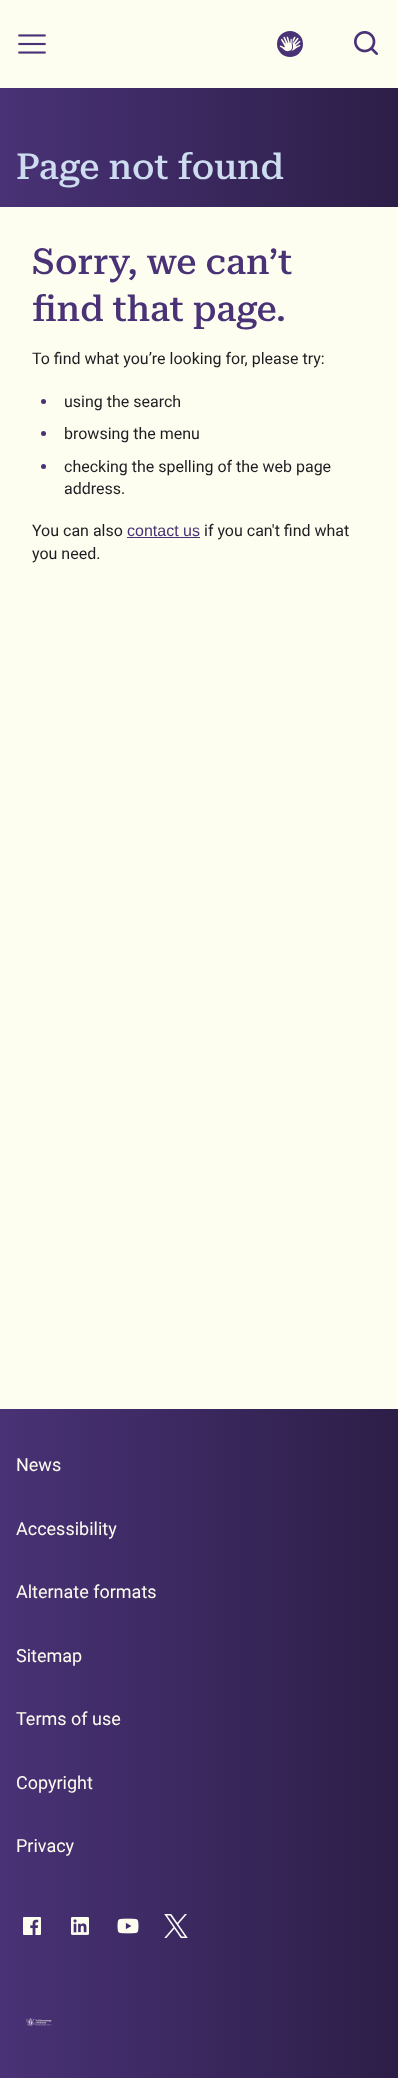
<svg xmlns="http://www.w3.org/2000/svg" width="398" height="2078">
	<defs>
		<linearGradient id="g1" gradientUnits="userSpaceOnUse" x1="398" y1="148" x2="0" y2="148"><stop offset="0" stop-color="#2C1E47" /><stop offset="1" stop-color="#493276" /></linearGradient>
		<linearGradient id="g2" gradientUnits="userSpaceOnUse" x1="398" y1="1744" x2="0" y2="1744"><stop offset="0" stop-color="#2C1E47" /><stop offset="1" stop-color="#493276" /></linearGradient>
	</defs>
	<rect width="100%" height="100%" fill="#FDFDF0" />
	<image x="18" y="34" width="28" height="20" href="assets/img1.png" />
	<circle cx="290" cy="44" r="13" fill="#493276" />
	<image x="279" y="36" width="22" height="16" href="assets/img2.png" />
	<image x="354" y="31" width="24" height="24" href="assets/img3.png" />
	<rect x="0" y="88" width="398" height="119" fill="url(#g1)" />
	<text x="16" y="179" font-family="Roboto Serif" font-size="36" font-weight="500" fill="#CDDCEF">Page not found</text>
	<g font-family="Roboto Serif" font-size="36" font-weight="500" fill="#493276">
		<text x="32" y="274">Sorry, we can’t</text>
		<text x="32" y="321">find that page.</text>
	</g>
	<text x="32" y="364" font-family="Roboto" font-size="16" fill="#1E1C20">To find what you’re looking for, please try:</text>
	<circle cx="43.5" cy="401.5" r="2.5" fill="#493276" />
	<text x="64" y="407" font-family="Roboto" font-size="16" fill="#1E1C20">using the search</text>
	<circle cx="43.5" cy="433.5" r="2.5" fill="#493276" />
	<text x="64" y="439" font-family="Roboto" font-size="16" fill="#1E1C20">browsing the menu</text>
	<circle cx="43.5" cy="466.5" r="2.5" fill="#493276" />
	<g font-family="Roboto" font-size="16" fill="#1E1C20">
		<text x="64" y="472">checking the spelling of the web page</text>
		<text x="64" y="494">address.</text>
		<text x="32" y="536">You can also</text>
	</g>
	<text x="127" y="536" font-family="Liberation Sans" font-size="16" fill="#493276">contact us</text>
	<rect x="127" y="537" width="73" height="1" fill="#493276" />
	<g font-family="Roboto" font-size="16" fill="#1E1C20">
		<text x="204" y="536">if you can't find what</text>
		<text x="32" y="559">you need.</text>
	</g>
	<rect x="0" y="1409" width="398" height="669" fill="url(#g2)" />
	<g font-family="Roboto" font-size="18" fill="#FDFDF0">
		<text x="16" y="1471">News</text>
		<text x="16" y="1535">Accessibility</text>
		<text x="16" y="1598">Alternate formats</text>
		<text x="16" y="1662">Sitemap</text>
		<text x="16" y="1725">Terms of use</text>
		<text x="16" y="1789">Copyright</text>
		<text x="16" y="1852">Privacy</text>
	</g>
	<image x="23" y="1917" width="18" height="18" href="assets/img4.png" />
	<image x="71" y="1917" width="18" height="18" href="assets/img5.png" />
	<image x="117" y="1918" width="22" height="16" href="assets/img6.png" />
	<image x="164" y="1914" width="24" height="24" href="assets/img7.png" />
	<image x="26" y="2018" width="26" height="8" href="assets/img8.png" />
</svg>
